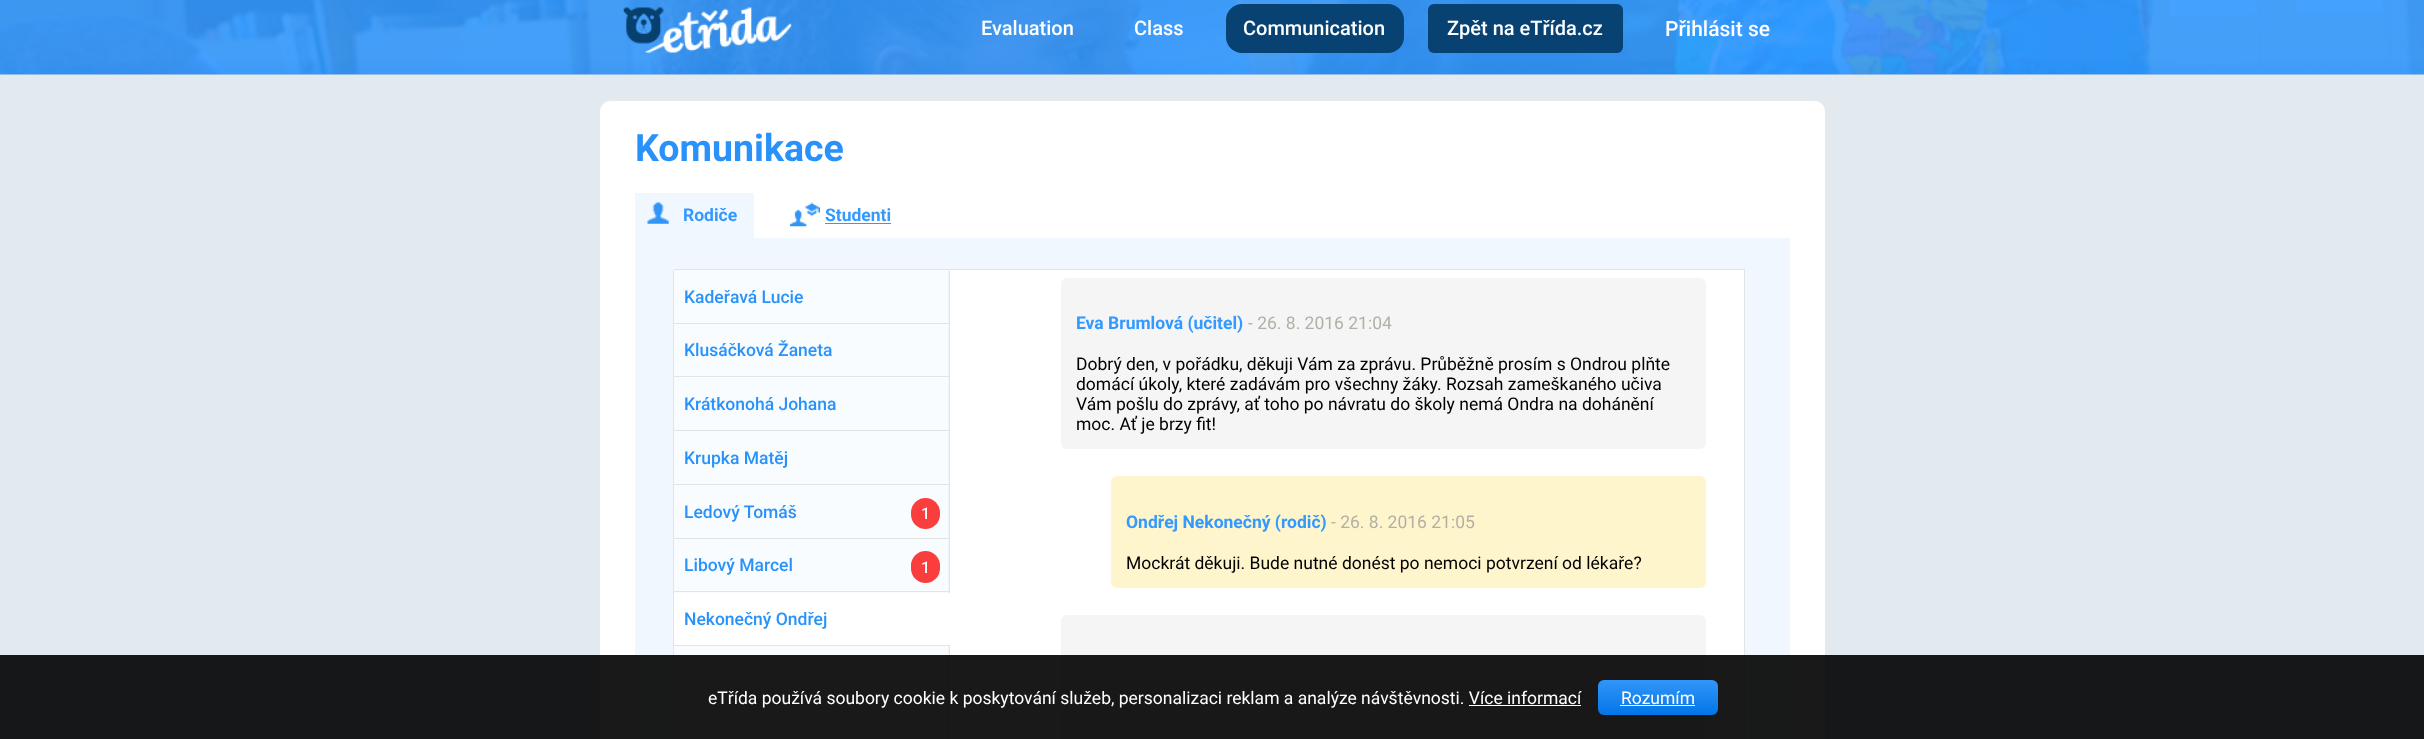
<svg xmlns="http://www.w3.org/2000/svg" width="2424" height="739">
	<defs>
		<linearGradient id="g1" gradientUnits="userSpaceOnUse" x1="1658" y1="680" x2="1658" y2="715"><stop offset="0" stop-color="#3296FA" /><stop offset="1" stop-color="#0275E7" /></linearGradient>
	</defs>
	<rect width="100%" height="100%" fill="#E2E9EF" />
	<image x="0" y="0" width="2424" height="74" href="assets/img1.png" />
	<rect x="0" y="74" width="2424" height="1" fill="#8DBDED" />
	<image x="623" y="7" width="169" height="46" href="assets/img2.png" />
	<g font-family="Roboto" font-size="20" font-weight="500" fill="#FFFFFF">
		<text x="981" y="35">Evaluation</text>
		<text x="1134" y="35">Class</text>
	</g>
	<rect x="1226" y="4" width="178" height="49" rx="16" fill="#074272" />
	<text x="1243" y="35" font-family="Roboto" font-size="20" font-weight="500" fill="#FFFFFF">Communication</text>
	<rect x="1428" y="4" width="195" height="49" rx="6" fill="#074272" />
	<text x="1447" y="35" font-family="Roboto" font-size="20" font-weight="500" fill="#FFFFFF">Zpět na eTřída.cz</text>
	<text x="1665" y="36" font-family="Roboto" font-size="21" font-weight="500" fill="#FFFFFF">Přihlásit se</text>
	<rect x="600" y="101" width="1225" height="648" rx="10" fill="#FFFFFF" />
	<text x="635" y="161" font-family="Roboto" font-size="37.5" font-weight="700" fill="#2892FA">Komunikace</text>
	<rect x="635" y="193" width="119" height="45" fill="#F1F7FF" />
	<image x="647" y="202" width="22" height="22" href="assets/img3.png" />
	<text x="683" y="221" font-family="Roboto" font-size="17.5" font-weight="700" fill="#3399FF">Rodiče</text>
	<image x="790" y="202" width="30" height="25" href="assets/img4.png" />
	<text x="825" y="221" font-family="Roboto" font-size="17.5" font-weight="700" fill="#3399FF">Studenti</text>
	<rect x="825" y="223" width="66" height="1" fill="#3399FF" />
	<rect x="635" y="238" width="1155" height="501" fill="#F1F7FF" />
	<image x="674" y="269" width="276" height="470" href="assets/img5.png" />
	<rect x="674" y="269" width="275" height="1" fill="#E2E4E5" />
	<rect x="673" y="270" width="1" height="469" fill="#E2E4E5" />
	<rect x="674" y="323" width="276" height="1" fill="#E2E4E5" />
	<text x="684" y="303" font-family="Roboto" font-size="17.5" font-weight="500" fill="#2892FA">Kadeřavá Lucie</text>
	<rect x="674" y="376" width="276" height="1" fill="#E2E4E5" />
	<text x="684" y="356" font-family="Roboto" font-size="17.5" font-weight="500" fill="#2892FA">Klusáčková Žaneta</text>
	<rect x="674" y="430" width="276" height="1" fill="#E2E4E5" />
	<text x="684" y="410" font-family="Roboto" font-size="17.5" font-weight="500" fill="#2892FA">Krátkonohá Johana</text>
	<rect x="674" y="484" width="276" height="1" fill="#E2E4E5" />
	<text x="684" y="464" font-family="Roboto" font-size="17.5" font-weight="500" fill="#2892FA">Krupka Matěj</text>
	<rect x="674" y="538" width="276" height="1" fill="#E2E4E5" />
	<text x="684" y="518" font-family="Roboto" font-size="17.5" font-weight="500" fill="#2892FA">Ledový Tomáš</text>
	<rect x="911" y="498" width="29" height="31" rx="14.5" fill="#FA3E3E" />
	<text x="921" y="519" font-family="Roboto" font-size="16" font-weight="500" fill="#FFFFFF">1</text>
	<rect x="674" y="591" width="276" height="1" fill="#E2E4E5" />
	<text x="684" y="571" font-family="Roboto" font-size="17.5" font-weight="500" fill="#2892FA">Libový Marcel</text>
	<rect x="911" y="551" width="29" height="32" rx="14.5" fill="#FA3E3E" />
	<text x="921" y="573" font-family="Roboto" font-size="16" font-weight="500" fill="#FFFFFF">1</text>
	<rect x="674" y="645" width="276" height="1" fill="#E2E4E5" />
	<rect x="674" y="593" width="276" height="52" fill="#FFFFFF" />
	<text x="684" y="625" font-family="Roboto" font-size="17.5" font-weight="500" fill="#2892FA">Nekonečný Ondřej</text>
	<rect x="674" y="699" width="276" height="1" fill="#E2E4E5" />
	<rect x="950" y="270" width="794" height="469" fill="#FFFFFF" />
	<rect x="950" y="269" width="795" height="1" fill="#E2E4E5" />
	<rect x="1744" y="269" width="1" height="470" fill="#E2E4E5" />
	<rect x="1061" y="278" width="645" height="171" rx="6" fill="#F5F5F5" />
	<text x="1076" y="329" font-family="Roboto" font-size="17.5" font-weight="700" fill="#3399FF">Eva Brumlová (učitel)</text>
	<text x="1248" y="329" font-family="Roboto" font-size="17.5" fill="#B2B0A6">- 26. 8. 2016 21:04</text>
	<g font-family="Roboto" font-size="17.5" fill="#000000">
		<text x="1076" y="370">Dobrý den, v pořádku, děkuji Vám za zprávu. Průběžně prosím s Ondrou plňte</text>
		<text x="1076" y="390">domácí úkoly, které zadávám pro všechny žáky. Rozsah zameškaného učiva</text>
		<text x="1076" y="410">Vám pošlu do zprávy, ať toho po návratu do školy nemá Ondra na dohánění</text>
		<text x="1076" y="430">moc. Ať je brzy fit!</text>
	</g>
	<rect x="1111" y="476" width="595" height="112" rx="6" fill="#FFF5CC" />
	<text x="1126" y="528" font-family="Roboto" font-size="17.5" font-weight="700" fill="#3399FF">Ondřej Nekonečný (rodič)</text>
	<text x="1331" y="528" font-family="Roboto" font-size="17.5" fill="#B2B0A6">- 26. 8. 2016 21:05</text>
	<text x="1126" y="569" font-family="Roboto" font-size="17.5" fill="#000000">Mockrát děkuji. Bude nutné donést po nemoci potvrzení od lékaře?</text>
	<rect x="1061" y="615" width="645" height="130" rx="6" fill="#F5F5F5" />
	<rect x="0" y="655" width="2424" height="84" fill="#000000" fill-opacity="0.9" />
	<text x="708" y="704" font-family="Roboto" font-size="17.5" fill="#FFFFFF">eTřída používá soubory cookie k poskytování služeb, personalizaci reklam a analýze návštěvnosti. Více informací</text>
	<rect x="1598" y="680" width="120" height="35" rx="6" fill="url(#g1)" />
	<text x="1621" y="704" font-family="Roboto" font-size="17.5" fill="#FFFFFF">Rozumím</text>
	<rect x="1620" y="705" width="75" height="1" fill="#FFFFFF" />
	<rect x="1469" y="705" width="112" height="1" fill="#FFFFFF" />
</svg>
